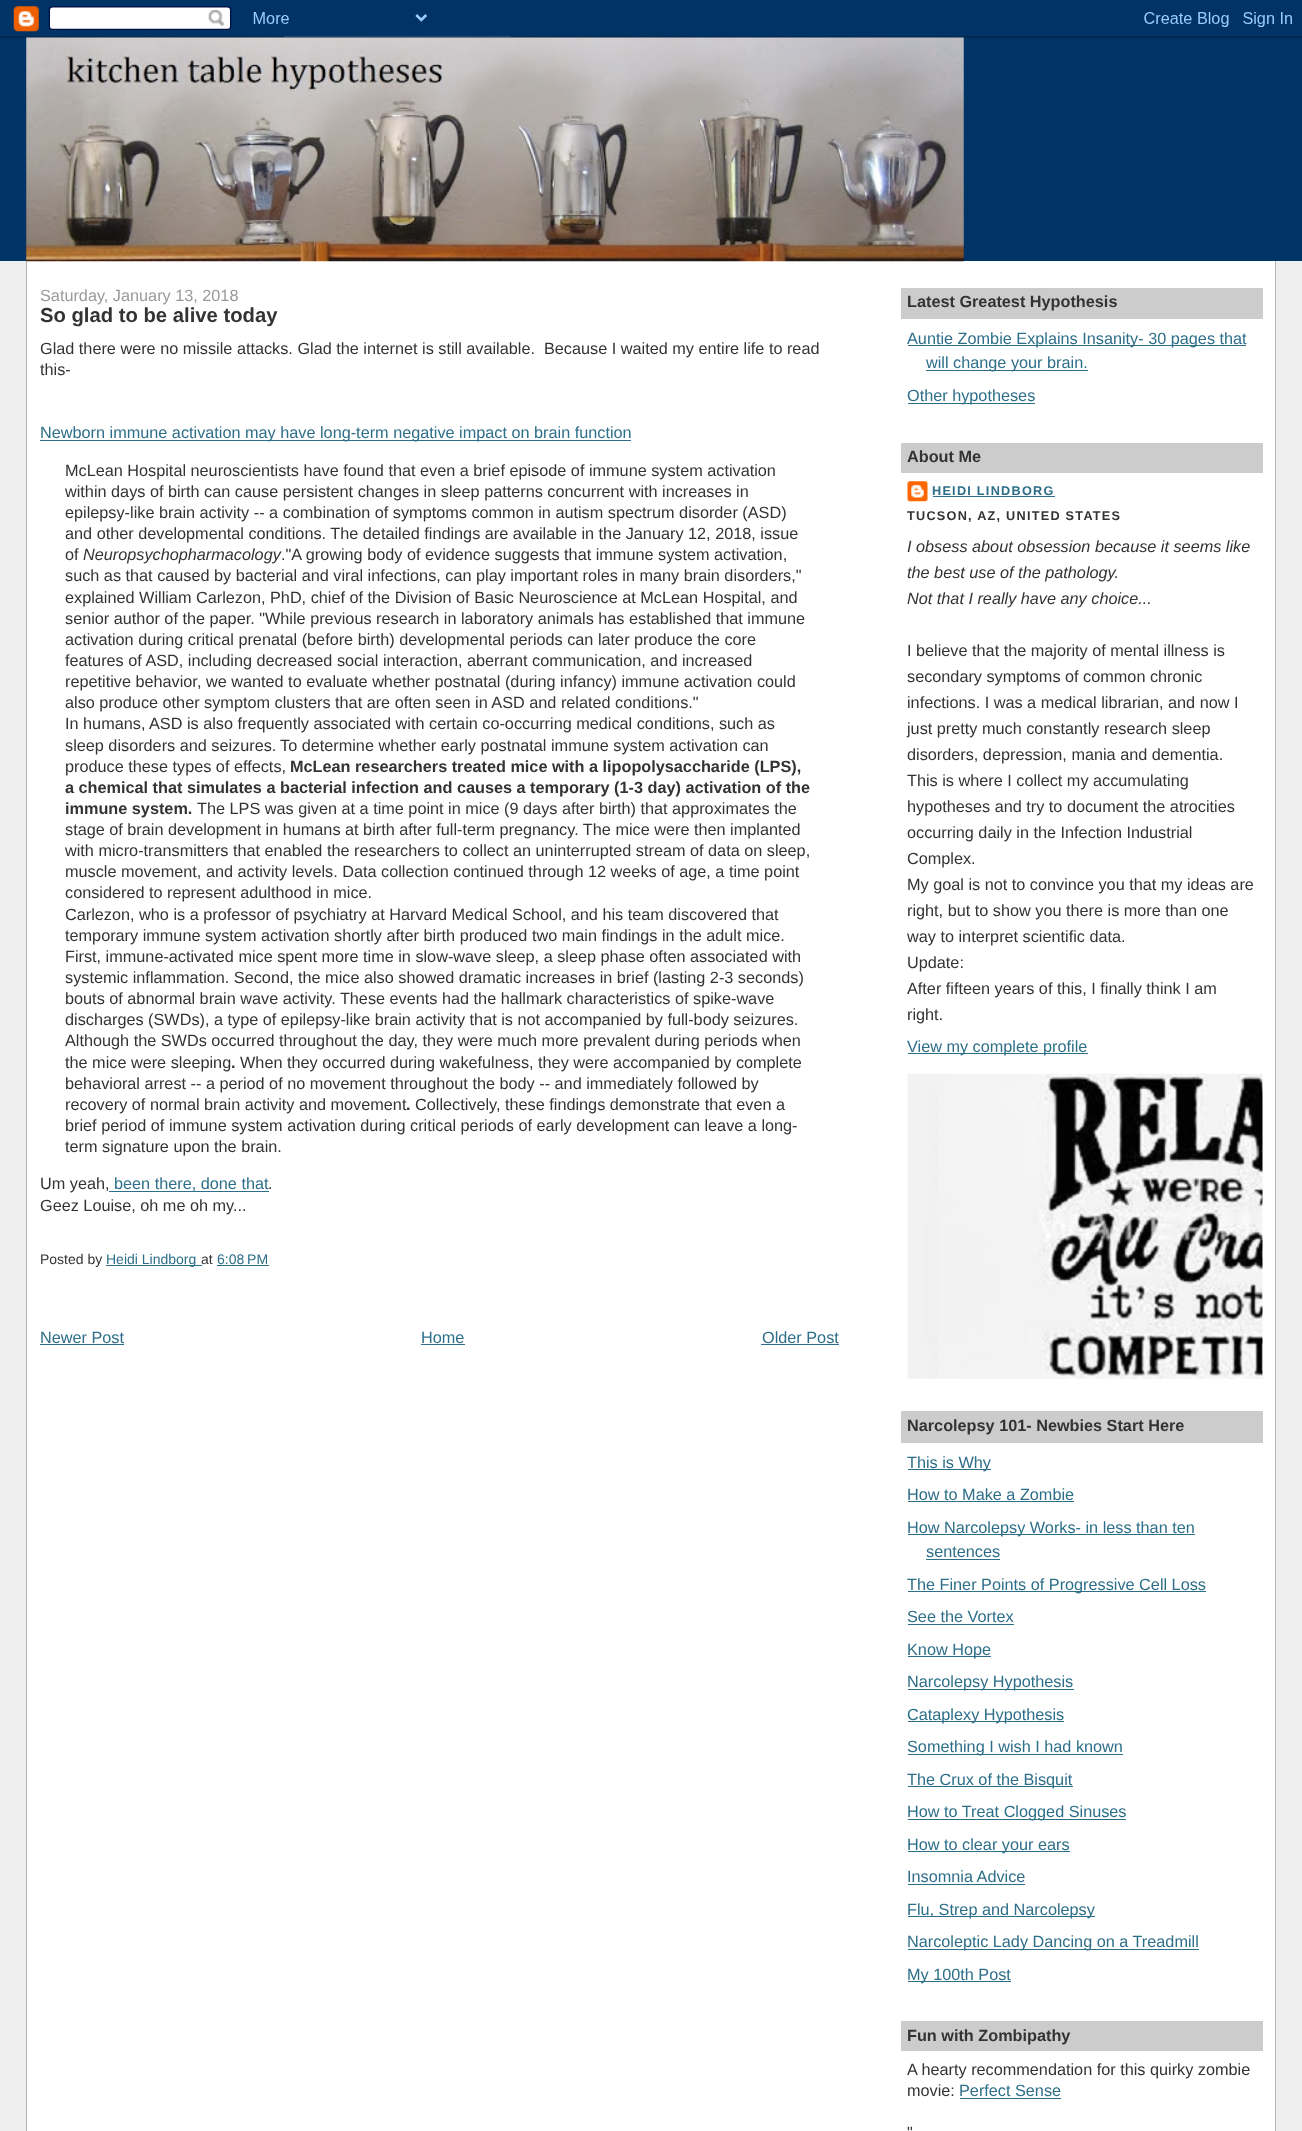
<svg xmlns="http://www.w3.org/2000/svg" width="1302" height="2131">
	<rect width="100%" height="100%" fill="#EFEFEF" />
	<image x="0" y="0" width="1302" height="38" href="assets/img1.png" />
	<rect x="0" y="38" width="1302" height="223" fill="#003366" />
	<rect x="27" y="261" width="1248" height="1870" fill="#FFFFFF" />
	<rect x="26" y="261" width="1" height="1870" fill="#B3B3B3" />
	<image x="26" y="37" width="938" height="225" href="assets/img2.png" />
	<rect x="1275" y="261" width="1" height="1870" fill="#B3B3B3" />
	<text x="40" y="301" font-family="Liberation Sans" font-size="16.25" fill="#999999">Saturday, January 13, 2018</text>
	<text x="40" y="322" font-family="Liberation Sans" font-size="20.25" font-weight="700" fill="#333333">So glad to be alive today</text>
	<g font-family="Liberation Sans" font-size="16.25" fill="#333333">
		<text x="40" y="354" xml:space="preserve">Glad there were no missile attacks. Glad the internet is still available.  Because I waited my entire life to read</text>
		<text x="40" y="375">this-</text>
	</g>
	<rect x="40" y="440" width="591" height="1" fill="#2D6E89" />
	<text x="40" y="438" font-family="Liberation Sans" font-size="16.25" fill="#2D6E89">Newborn immune activation may have long-term negative impact on brain function</text>
	<g font-family="Liberation Sans" font-size="16.25" fill="#333333">
		<text x="65" y="476">McLean Hospital neuroscientists have found that even a brief episode of immune system activation</text>
		<text x="65" y="497">within days of birth can cause persistent changes in sleep patterns concurrent with increases in</text>
		<text x="65" y="518">epilepsy-like brain activity -- a combination of symptoms common in autism spectrum disorder (ASD)</text>
		<text x="65" y="539">and other developmental conditions. The detailed findings are available in the January 12, 2018, issue</text>
		<text x="65" y="560">of</text>
	</g>
	<text x="83" y="560" font-family="Liberation Sans" font-size="16.25" font-style="italic" fill="#333333">Neuropsychopharmacology</text>
	<g font-family="Liberation Sans" font-size="16.25" fill="#333333">
		<text x="281" y="560">."A growing body of evidence suggests that immune system activation,</text>
		<text x="65" y="581">such as that caused by bacterial and viral infections, can play important roles in many brain disorders,"</text>
		<text x="65" y="603">explained William Carlezon, PhD, chief of the Division of Basic Neuroscience at McLean Hospital, and</text>
		<text x="65" y="624">senior author of the paper. "While previous research in laboratory animals has established that immune</text>
		<text x="65" y="645">activation during critical prenatal (before birth) developmental periods can later produce the core</text>
		<text x="65" y="666">features of ASD, including decreased social interaction, aberrant communication, and increased</text>
		<text x="65" y="687">repetitive behavior, we wanted to evaluate whether postnatal (during infancy) immune activation could</text>
		<text x="65" y="708">also produce other symptom clusters that are often seen in ASD and related conditions."</text>
		<text x="65" y="729">In humans, ASD is also frequently associated with certain co-occurring medical conditions, such as</text>
		<text x="65" y="751">sleep disorders and seizures.</text>
		<text x="280" y="751">To determine whether early postnatal immune system activation can</text>
		<text x="65" y="772">produce these types of effects,</text>
	</g>
	<g font-family="Liberation Sans" font-size="16.25" font-weight="700" fill="#333333">
		<text x="290" y="772">McLean researchers treated mice with a lipopolysaccharide (LPS),</text>
		<text x="65" y="793">a chemical that simulates a bacterial infection and causes a temporary (1-3 day) activation of the</text>
		<text x="65" y="814">immune system.</text>
	</g>
	<g font-family="Liberation Sans" font-size="16.25" fill="#333333">
		<text x="197" y="814">The LPS was given at a time point in mice (9 days after birth) that approximates the</text>
		<text x="65" y="835">stage of brain development in humans at birth after full-term pregnancy. The mice were then implanted</text>
		<text x="65" y="856">with micro-transmitters that enabled the researchers to collect an uninterrupted stream of data on sleep,</text>
		<text x="65" y="877">muscle movement, and activity levels. Data collection continued through 12 weeks of age, a time point</text>
		<text x="65" y="898">considered to represent adulthood in mice.</text>
		<text x="65" y="920">Carlezon, who is a professor of psychiatry at Harvard Medical School, and his team discovered that</text>
		<text x="65" y="941">temporary immune system activation shortly after birth produced two main findings in the adult mice.</text>
		<text x="65" y="962">First, immune-activated mice spent more time in slow-wave sleep, a sleep phase often associated with</text>
		<text x="65" y="983">systemic inflammation. Second, the mice also showed dramatic increases in brief (lasting 2-3 seconds)</text>
		<text x="65" y="1004">bouts of abnormal brain wave activity. These events had the hallmark characteristics of spike-wave</text>
		<text x="65" y="1025">discharges (SWDs), a type of epilepsy-like brain activity that is not accompanied by full-body seizures.</text>
		<text x="65" y="1046">Although the SWDs occurred throughout the day, they were much more prevalent during periods when</text>
		<text x="65" y="1068">the mice were sleeping</text>
	</g>
	<text x="231" y="1068" font-family="Liberation Sans" font-size="16.25" font-weight="700" fill="#333333">.</text>
	<g font-family="Liberation Sans" font-size="16.25" fill="#333333">
		<text x="240" y="1068">When they occurred during wakefulness, they were accompanied by complete</text>
		<text x="65" y="1089">behavioral arrest -- a period of no movement throughout the body -- and immediately followed by</text>
		<text x="65" y="1110">recovery of normal brain activity and movement</text>
	</g>
	<text x="406" y="1110" font-family="Liberation Sans" font-size="16.25" font-weight="700" fill="#333333">.</text>
	<g font-family="Liberation Sans" font-size="16.25" fill="#333333">
		<text x="415" y="1110">Collectively, these findings demonstrate that even a</text>
		<text x="65" y="1131">brief period of immune system activation during critical periods of early development can leave a long-</text>
		<text x="65" y="1152">term signature upon the brain.</text>
		<text x="40" y="1189">Um yeah,</text>
	</g>
	<rect x="109" y="1191" width="160" height="1" fill="#2D6E89" />
	<text x="114" y="1189" font-family="Liberation Sans" font-size="16.25" fill="#2D6E89">been there, done that</text>
	<g font-family="Liberation Sans" font-size="16.25" fill="#333333">
		<text x="268" y="1189">.</text>
		<text x="40" y="1211">Geez Louise, oh me oh my...</text>
	</g>
	<text x="40" y="1264" font-family="Liberation Sans" font-size="14" fill="#333333">Posted by</text>
	<rect x="106" y="1265" width="96" height="1" fill="#2D6E89" />
	<text x="106" y="1264" font-family="Liberation Sans" font-size="14" fill="#2D6E89">Heidi Lindborg</text>
	<text x="201" y="1264" font-family="Liberation Sans" font-size="14" fill="#333333">at</text>
	<path d="M217 1265.5H268.5" fill="none" stroke="#2D6E89" stroke-width="1.2" stroke-dasharray="1.25 1.25" />
	<text x="217" y="1264" font-family="Liberation Sans" font-size="14" fill="#2D6E89">6:08 PM</text>
	<rect x="218" y="1265" width="51" height="1" fill="#2D6E89" />
	<text x="40" y="1343" font-family="Liberation Sans" font-size="16.25" fill="#2D6E89">Newer Post</text>
	<rect x="40" y="1344" width="84" height="1" fill="#2D6E89" />
	<text x="421" y="1343" font-family="Liberation Sans" font-size="16.25" fill="#2D6E89">Home</text>
	<rect x="421" y="1344" width="44" height="1" fill="#2D6E89" />
	<text x="762" y="1343" font-family="Liberation Sans" font-size="16.25" fill="#2D6E89">Older Post</text>
	<rect x="761" y="1344" width="78" height="1" fill="#2D6E89" />
	<rect x="901" y="288" width="362" height="31" fill="#CCCCCC" />
	<text x="907" y="307" font-family="Liberation Sans" font-size="16.25" font-weight="700" fill="#333333">Latest Greatest Hypothesis</text>
	<rect x="908" y="345" width="338" height="1" fill="#2D6E89" />
	<text x="907" y="344" font-family="Liberation Sans" font-size="16.25" fill="#2D6E89">Auntie Zombie Explains Insanity- 30 pages that</text>
	<rect x="926" y="370" width="162" height="1" fill="#2D6E89" />
	<text x="926" y="368" font-family="Liberation Sans" font-size="16.25" fill="#2D6E89">will change your brain.</text>
	<rect x="908" y="403" width="127" height="1" fill="#2D6E89" />
	<text x="907" y="401" font-family="Liberation Sans" font-size="16.25" fill="#2D6E89">Other hypotheses</text>
	<rect x="901" y="443" width="362" height="30" fill="#CCCCCC" />
	<text x="907" y="462" font-family="Liberation Sans" font-size="16.25" font-weight="700" fill="#333333">About Me</text>
	<image x="907" y="481" width="21" height="21" href="assets/img3.png" />
	<text x="932" y="495" font-family="Liberation Sans" font-size="12.7" font-weight="700" letter-spacing="1.25" fill="#2D6E89">HEIDI LINDBORG</text>
	<rect x="933" y="496" width="122" height="1" fill="#2D6E89" />
	<text x="907" y="520" font-family="Liberation Sans" font-size="12.7" font-weight="700" letter-spacing="1.25" fill="#333333">TUCSON, AZ, UNITED STATES</text>
	<g font-family="Liberation Sans" font-size="16.25" font-style="italic" fill="#333333">
		<text x="907" y="552">I obsess about obsession because it seems like</text>
		<text x="907" y="578">the best use of the pathology.</text>
		<text x="907" y="604">Not that I really have any choice...</text>
	</g>
	<g font-family="Liberation Sans" font-size="16.25" fill="#333333">
		<text x="907" y="656">I believe that the majority of mental illness is</text>
		<text x="907" y="682">secondary symptoms of common chronic</text>
		<text x="907" y="708">infections. I was a medical librarian, and now I</text>
		<text x="907" y="734">just pretty much constantly research sleep</text>
		<text x="907" y="760">disorders, depression, mania and dementia.</text>
		<text x="907" y="786">This is where I collect my accumulating</text>
		<text x="907" y="812">hypotheses and try to document the atrocities</text>
		<text x="907" y="838">occurring daily in the Infection Industrial</text>
		<text x="907" y="864">Complex.</text>
		<text x="907" y="890">My goal is not to convince you that my ideas are</text>
		<text x="907" y="916">right, but to show you there is more than one</text>
		<text x="907" y="942">way to interpret scientific data.</text>
		<text x="907" y="968">Update:</text>
		<text x="907" y="994">After fifteen years of this, I finally think I am</text>
		<text x="907" y="1020">right.</text>
	</g>
	<rect x="908" y="1053" width="180" height="1" fill="#2D6E89" />
	<text x="907" y="1052" font-family="Liberation Sans" font-size="16.25" fill="#2D6E89">View my complete profile</text>
	<image x="907" y="1073" width="356" height="306" href="assets/img4.png" />
	<rect x="901" y="1411" width="362" height="32" fill="#CCCCCC" />
	<text x="907" y="1431" font-family="Liberation Sans" font-size="16.25" font-weight="700" fill="#333333">Narcolepsy 101- Newbies Start Here</text>
	<rect x="908" y="1469" width="83" height="1" fill="#2D6E89" />
	<g font-family="Liberation Sans" font-size="16.25" fill="#2D6E89">
		<text x="907" y="1468">This is Why</text>
		<text x="907" y="1500">How to Make a Zombie</text>
	</g>
	<rect x="908" y="1501" width="166" height="1" fill="#2D6E89" />
	<rect x="908" y="1534" width="287" height="1" fill="#2D6E89" />
	<g font-family="Liberation Sans" font-size="16.25" fill="#2D6E89">
		<text x="907" y="1533">How Narcolepsy Works- in less than ten</text>
		<text x="926" y="1557">sentences</text>
	</g>
	<rect x="926" y="1559" width="74" height="1" fill="#2D6E89" />
	<rect x="908" y="1591" width="298" height="1" fill="#2D6E89" />
	<g font-family="Liberation Sans" font-size="16.25" fill="#2D6E89">
		<text x="907" y="1590">The Finer Points of Progressive Cell Loss</text>
		<text x="907" y="1622">See the Vortex</text>
	</g>
	<rect x="908" y="1624" width="106" height="1" fill="#2D6E89" />
	<rect x="908" y="1656" width="83" height="1" fill="#2D6E89" />
	<text x="907" y="1655" font-family="Liberation Sans" font-size="16.25" fill="#2D6E89">Know Hope</text>
	<rect x="908" y="1689" width="166" height="1" fill="#2D6E89" />
	<text x="907" y="1687" font-family="Liberation Sans" font-size="16.25" fill="#2D6E89">Narcolepsy Hypothesis</text>
	<rect x="908" y="1721" width="156" height="1" fill="#2D6E89" />
	<text x="907" y="1720" font-family="Liberation Sans" font-size="16.25" fill="#2D6E89">Cataplexy Hypothesis</text>
	<rect x="908" y="1754" width="215" height="1" fill="#2D6E89" />
	<text x="907" y="1752" font-family="Liberation Sans" font-size="16.25" fill="#2D6E89">Something I wish I had known</text>
	<rect x="908" y="1786" width="165" height="1" fill="#2D6E89" />
	<text x="907" y="1785" font-family="Liberation Sans" font-size="16.25" fill="#2D6E89">The Crux of the Bisquit</text>
	<rect x="908" y="1819" width="218" height="1" fill="#2D6E89" />
	<text x="907" y="1817" font-family="Liberation Sans" font-size="16.25" fill="#2D6E89">How to Treat Clogged Sinuses</text>
	<rect x="908" y="1851" width="162" height="1" fill="#2D6E89" />
	<g font-family="Liberation Sans" font-size="16.25" fill="#2D6E89">
		<text x="907" y="1850">How to clear your ears</text>
		<text x="907" y="1882">Insomnia Advice</text>
	</g>
	<rect x="908" y="1884" width="117" height="1" fill="#2D6E89" />
	<rect x="908" y="1916" width="187" height="1" fill="#2D6E89" />
	<text x="907" y="1915" font-family="Liberation Sans" font-size="16.25" fill="#2D6E89">Flu, Strep and Narcolepsy</text>
	<rect x="908" y="1949" width="291" height="1" fill="#2D6E89" />
	<text x="907" y="1947" font-family="Liberation Sans" font-size="16.25" fill="#2D6E89">Narcoleptic Lady Dancing on a Treadmill</text>
	<rect x="908" y="1981" width="103" height="1" fill="#2D6E89" />
	<text x="907" y="1980" font-family="Liberation Sans" font-size="16.25" fill="#2D6E89">My 100th Post</text>
	<rect x="901" y="2021" width="362" height="30" fill="#CCCCCC" />
	<text x="907" y="2041" font-family="Liberation Sans" font-size="16.25" font-weight="700" fill="#333333">Fun with Zombipathy</text>
	<g font-family="Liberation Sans" font-size="16.25" fill="#333333">
		<text x="907" y="2075">A hearty recommendation for this quirky zombie</text>
		<text x="907" y="2096">movie:</text>
	</g>
	<text x="959" y="2096" font-family="Liberation Sans" font-size="16.25" fill="#2D6E89">Perfect Sense</text>
	<rect x="960" y="2098" width="101" height="1" fill="#2D6E89" />
	<text x="907" y="2138" font-family="Liberation Sans" font-size="16.25" fill="#333333">"</text>
</svg>
